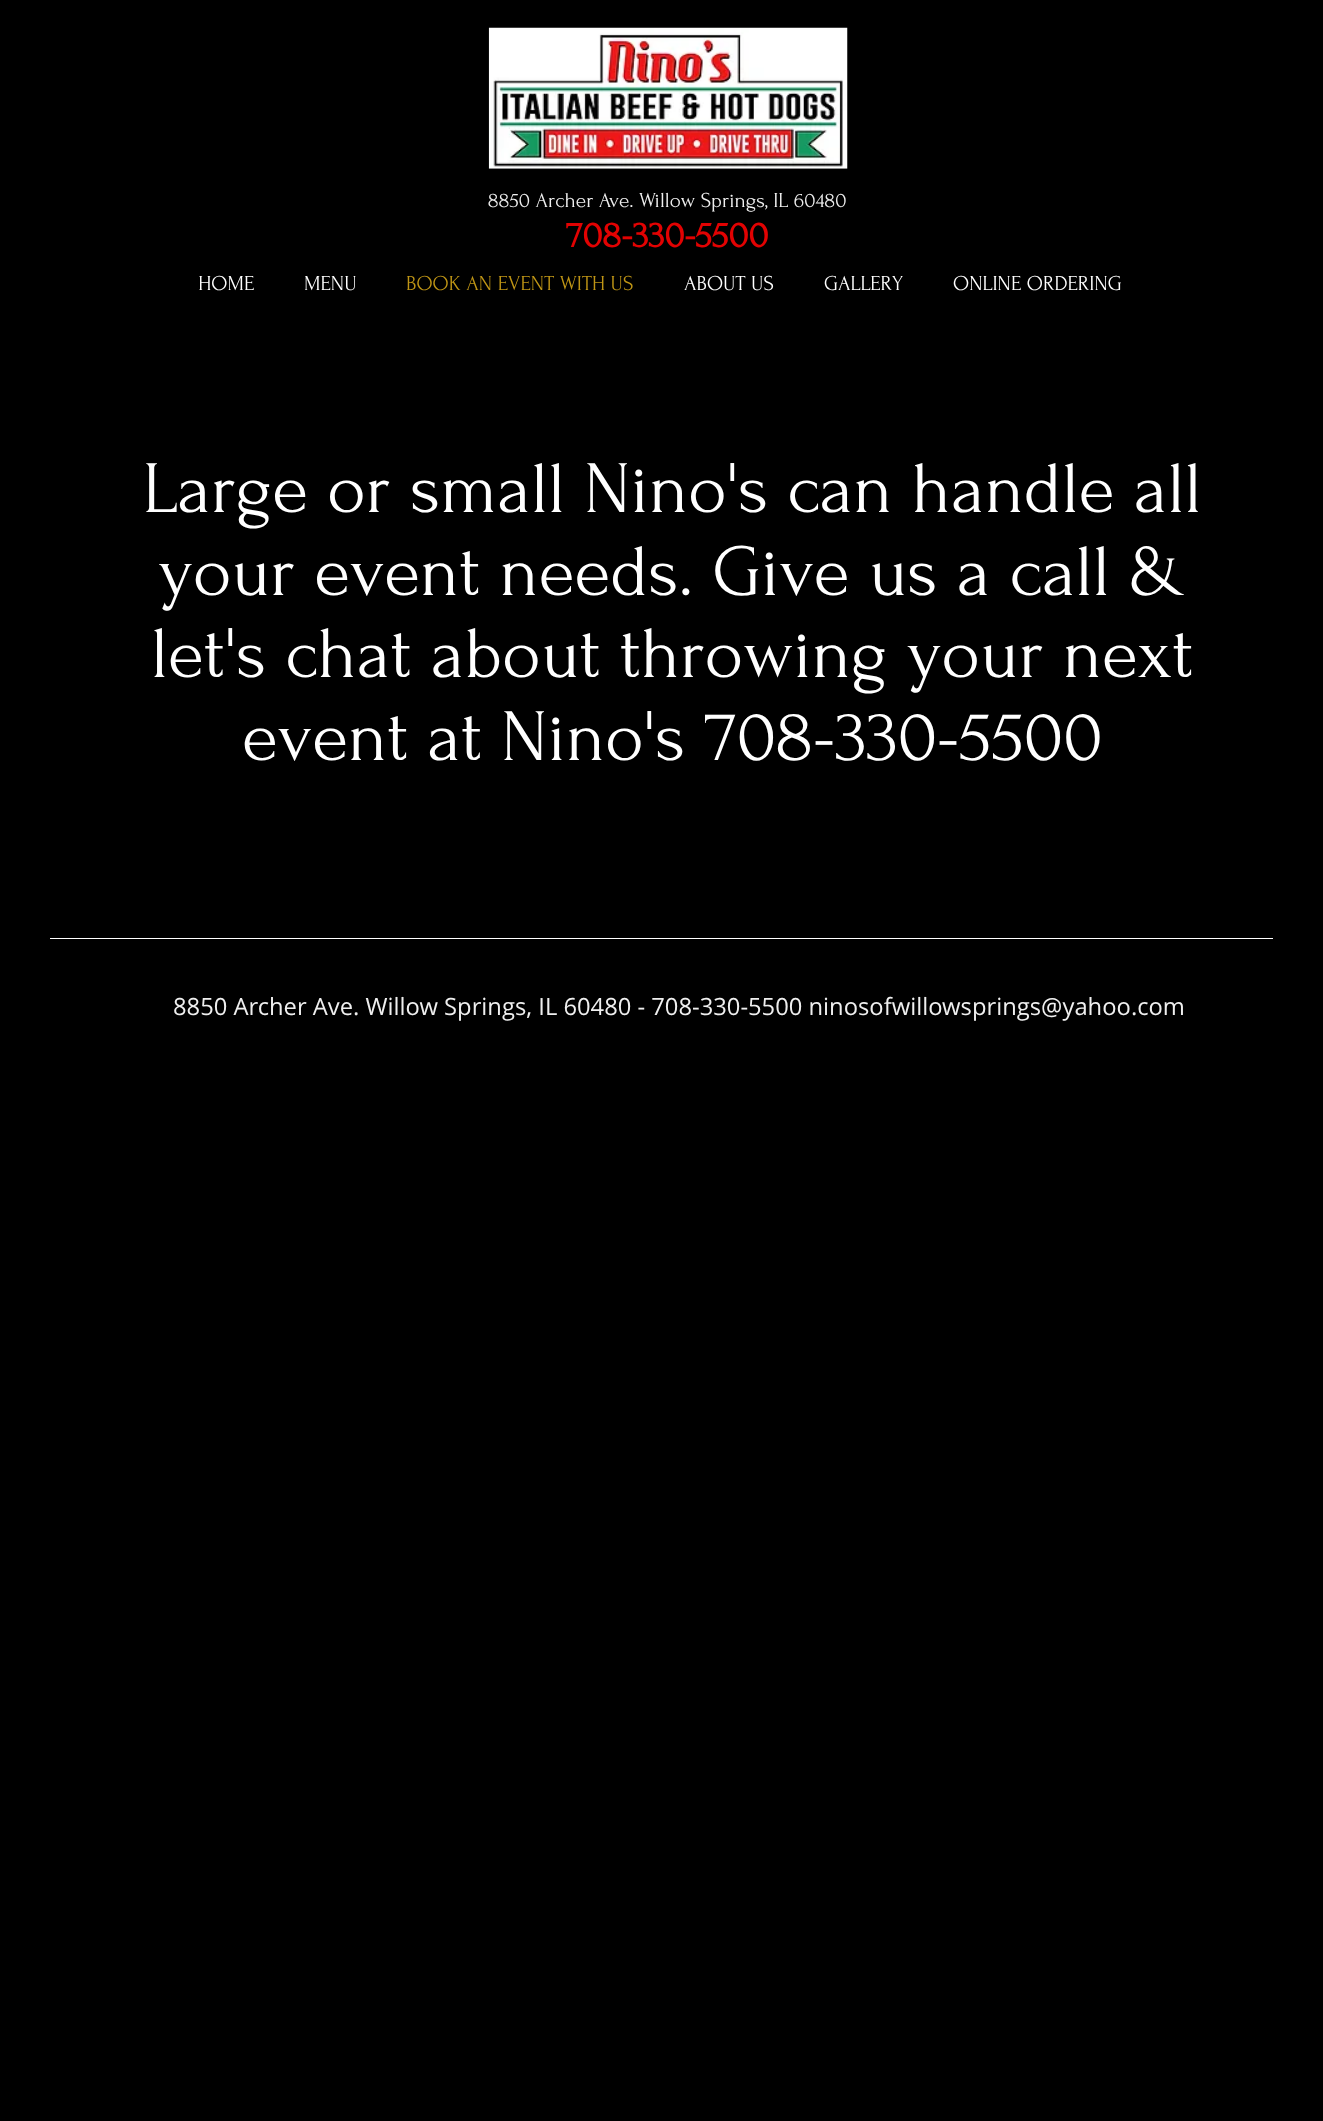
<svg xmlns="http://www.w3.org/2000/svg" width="1323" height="2121">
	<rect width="100%" height="100%" fill="#000000" />
	<image x="488" y="27" width="360" height="142" href="assets/img1.png" />
	<text x="488" y="207" font-family="Forum" font-size="21.25" fill="#EFEFEF">8850 Archer Ave. Willow Springs, IL 60480</text>
	<text x="566" y="247" font-family="Forum" font-size="37.5" font-weight="700" fill="#E20202">708-330-5500</text>
	<g font-family="Forum" font-size="21.25" fill="#FFFFFF">
		<text x="198" y="290">HOME</text>
		<text x="304" y="290">MENU</text>
	</g>
	<text x="406" y="290" font-family="Forum" font-size="21.25" fill="#BF9515">BOOK AN EVENT WITH US</text>
	<g font-family="Forum" font-size="21.25" fill="#FFFFFF">
		<text x="684" y="290">ABOUT US</text>
		<text x="824" y="290">GALLERY</text>
		<text x="953" y="290">ONLINE ORDERING</text>
	</g>
	<g font-family="Forum" font-size="73.75" fill="#FFFFFF">
		<text x="143" y="512">Large or small Nino's can handle all</text>
		<text x="158" y="595">your event needs. Give us a call &amp;</text>
		<text x="151" y="677">let's chat about throwing your next</text>
		<text x="242" y="760">event at Nino's 708-330-5500</text>
	</g>
	<rect x="50" y="938" width="1223" height="1" fill="#FFFFFF" />
	<text x="173" y="1015" font-family="Open Sans" font-size="23.75" fill="#EFEFEF">8850 Archer Ave. Willow Springs, IL 60480 - 708-330-5500 ninosofwillowsprings@yahoo.com</text>
</svg>
